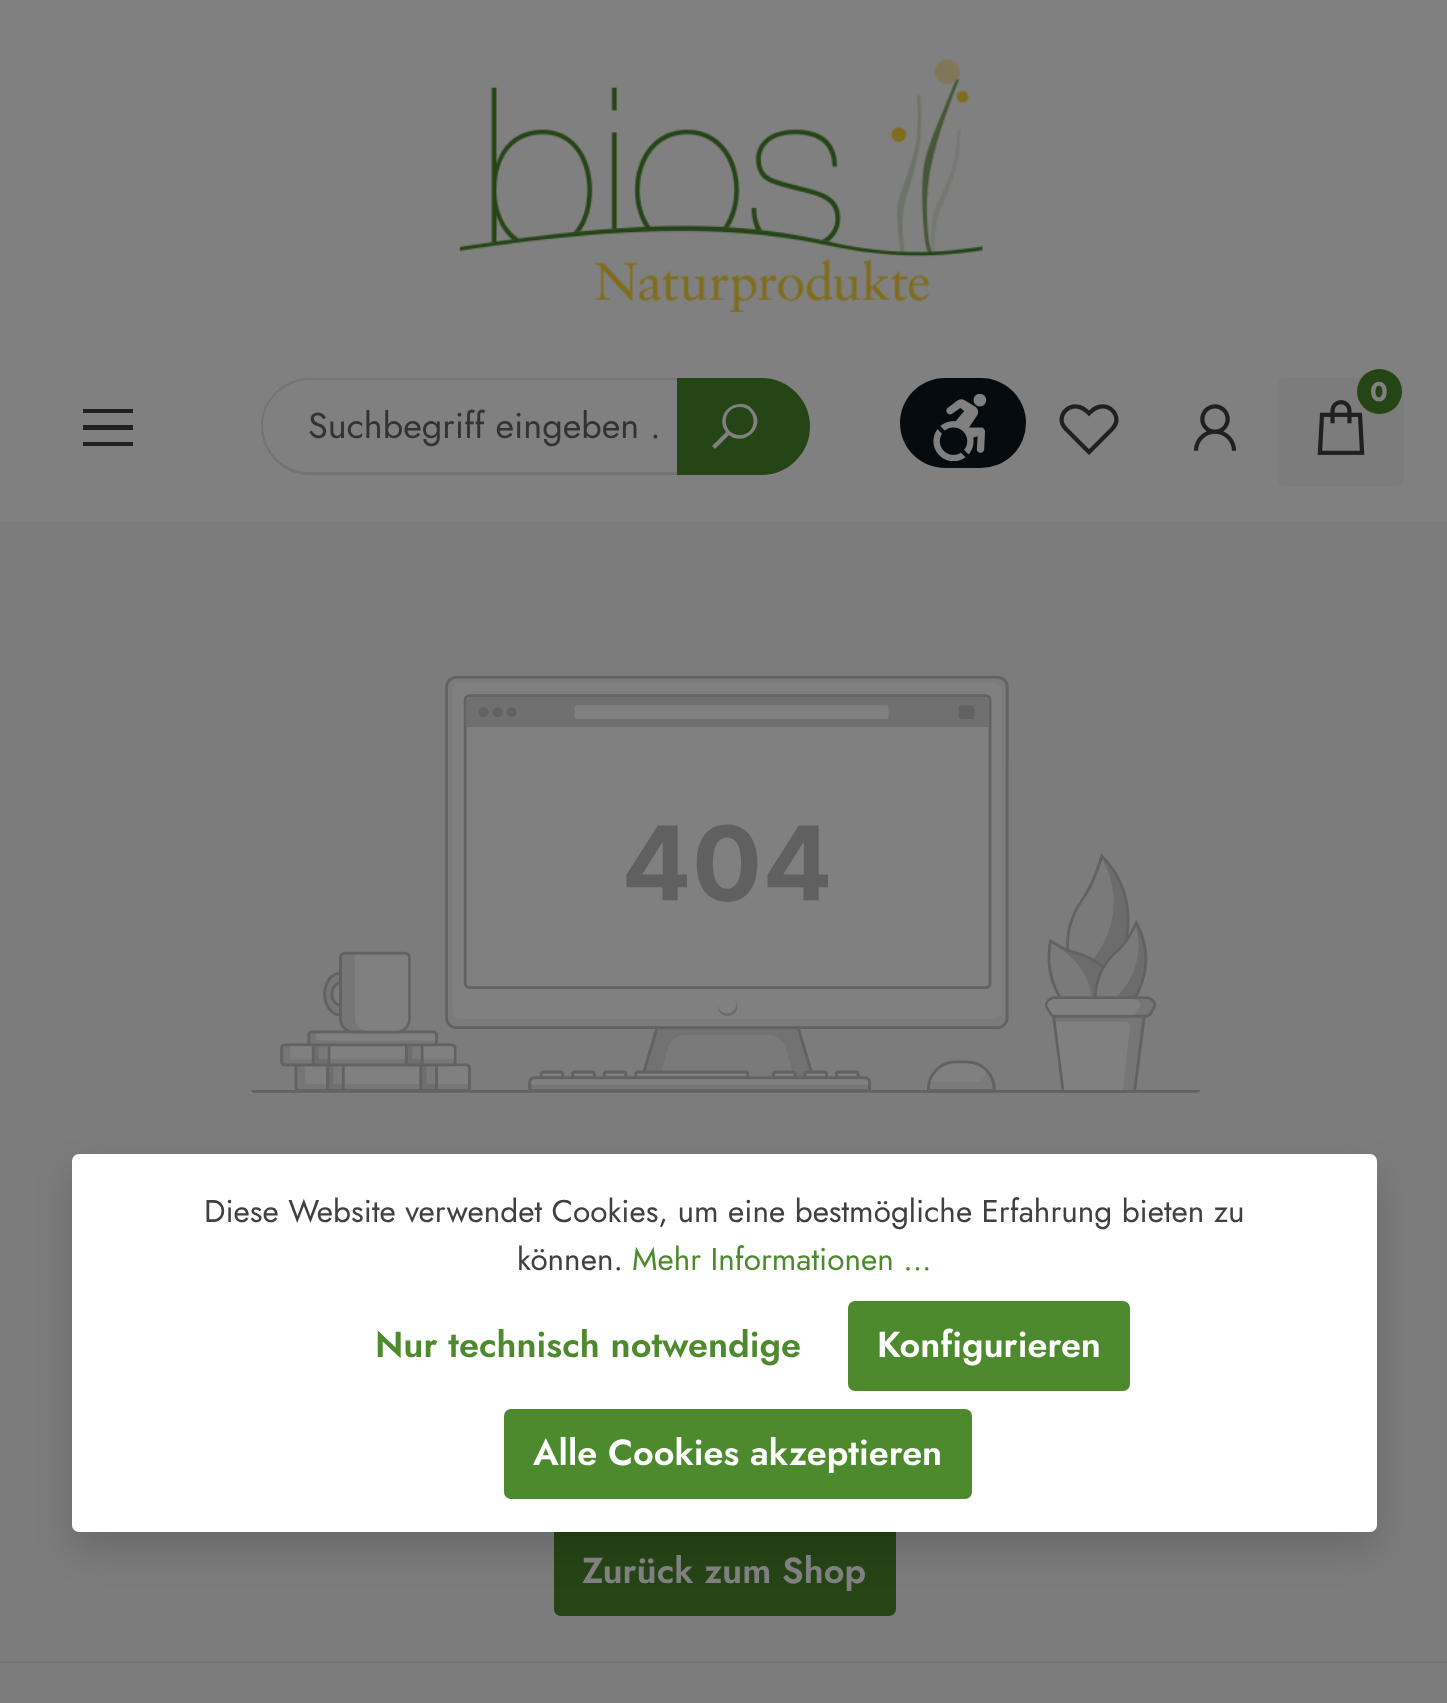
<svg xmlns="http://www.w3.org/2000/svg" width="1447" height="1703">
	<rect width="100%" height="100%" fill="#7C7C7C" />
	<rect x="0" y="0" width="1447" height="522" fill="#808080" />
	<image x="459" y="59" width="524" height="254" href="assets/img1.png" />
	<rect x="900" y="378" width="126" height="90" rx="45" fill="#060B10" />
	<image x="933" y="394" width="54" height="67" href="assets/img2.png" />
	<rect x="1278" y="378" width="126" height="108" rx="7" fill="#7C7C7C" />
	<image x="1317" y="400" width="48" height="55" href="assets/img3.png" />
	<circle cx="1379.5" cy="391.5" r="22.5" fill="#264517" />
	<text x="1370" y="401" font-family="Jost" font-size="27" font-weight="700" fill="#808080">0</text>
	<image x="1059" y="404" width="60" height="51" href="assets/img4.png" />
	<image x="1193" y="404" width="44" height="47" href="assets/img5.png" />
	<path d="M83 409V413H133V409ZM83 425V430H133V425ZM83 442V446H133V442Z" fill="#202020" />
	<path d="M309 378H680V475H309C283 475 261 453 261 426C261 400 283 378 309 378ZM309 380H680V472H309C284 472 263 452 263 426C263 401 284 380 309 380Z" fill="#737373" fill-rule="evenodd" />
	<text x="308" y="438" font-family="Jost" font-size="36" fill="#333333">Suchbegriff eingeben .</text>
	<path d="M678 379H761.5C787.5 379 809 400.5 809 426.5C809 452.5 787.5 474 761.5 474H678Z" fill="#264517" stroke="#264517" stroke-width="2" />
	<path d="M740 404C725 404 717 421 726 432L712 446L715 449L729 435C745 448 768 425 752 409C749 405 745 404 740 404ZM740 407C758 407 758 435 740 435C721 435 721 407 740 407Z" fill="#808080" />
	<rect x="555" y="1527" width="340" height="88" rx="6" fill="#264517" stroke="#264517" stroke-width="2" />
	<rect x="72" y="1172" width="1305" height="378" rx="7" fill="#000000" fill-opacity="0.15" filter="blur(18px)" />
	<rect x="72" y="1154" width="1305" height="378" rx="7" fill="#FFFFFF" />
	<g font-family="Jost" font-size="31.5" fill="#404040">
		<text x="204" y="1222">Diese Website verwendet Cookies, um eine bestmögliche Erfahrung bieten zu</text>
		<text x="517" y="1270">können.</text>
	</g>
	<text x="632" y="1270" font-family="Jost" font-size="31.5" fill="#4C8A2D">Mehr Informationen ...</text>
	<text x="375" y="1357" font-family="Jost" font-size="36" font-weight="600" fill="#4C8A2D">Nur technisch notwendige</text>
	<rect x="849" y="1302" width="280" height="88" rx="6" fill="#4C8A2D" stroke="#4C8A2D" stroke-width="2" />
	<text x="877" y="1357" font-family="Jost" font-size="36" font-weight="600" fill="#FFFFFF">Konfigurieren</text>
	<rect x="505" y="1410" width="466" height="88" rx="6" fill="#4C8A2D" stroke="#4C8A2D" stroke-width="2" />
	<text x="533" y="1465" font-family="Jost" font-size="36" font-weight="600" fill="#FFFFFF">Alle Cookies akzeptieren</text>
	<image x="251" y="675" width="950" height="418" href="assets/img6.png" />
	<text x="582" y="1583" font-family="Jost" font-size="36" font-weight="600" fill="#808080">Zurück zum Shop</text>
	<rect x="0" y="1661" width="1447" height="2" fill="#737373" />
</svg>
